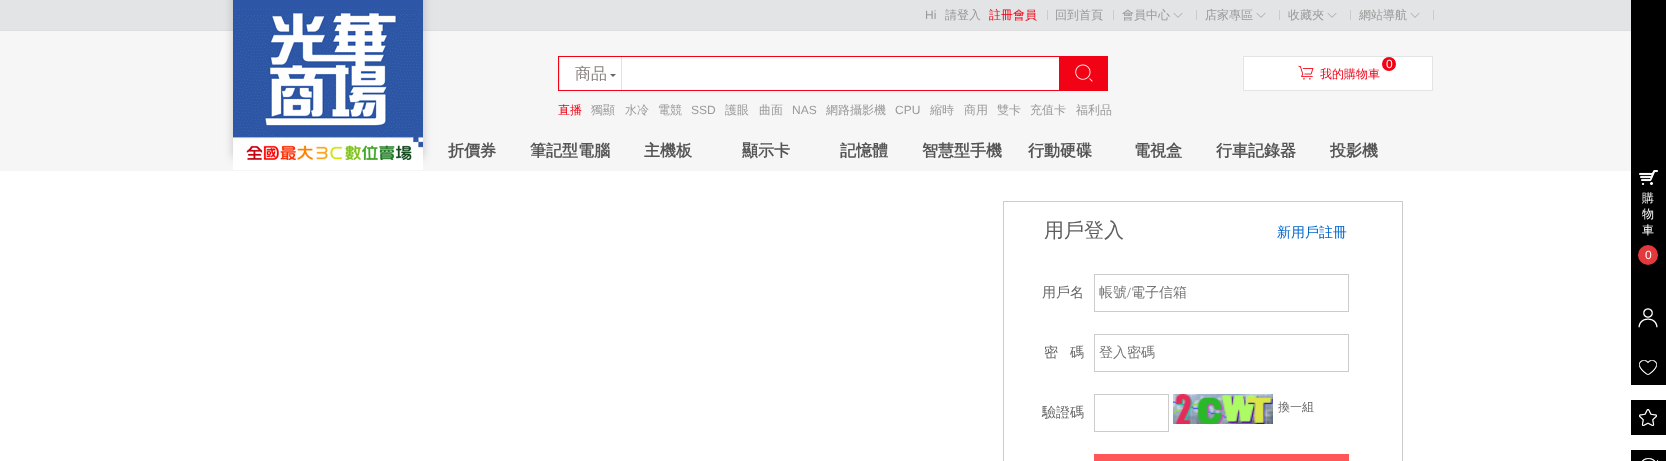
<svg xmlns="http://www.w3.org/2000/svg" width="1666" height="461">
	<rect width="100%" height="100%" fill="#FFFFFF" />
	<rect x="0" y="0" width="1631" height="30" fill="#E3E4E5" />
	<rect x="0" y="30" width="1631" height="1" fill="#DDDDDD" />
	<text x="925" y="19" font-family="Liberation Sans" font-size="12" fill="#999999">Hi</text>
	<text x="945" y="19" font-family="WenQuanYi Zen Hei" font-size="12" font-weight="500" fill="#999999">請登入</text>
	<text x="989" y="19" font-family="WenQuanYi Zen Hei" font-size="12" font-weight="500" fill="#F10215">註冊會員</text>
	<rect x="1047" y="10" width="1" height="10" fill="#CCCCCC" />
	<text x="1055" y="19" font-family="WenQuanYi Zen Hei" font-size="12" font-weight="500" fill="#999999">回到首頁</text>
	<rect x="1113" y="10" width="1" height="10" fill="#CCCCCC" />
	<text x="1122" y="19" font-family="WenQuanYi Zen Hei" font-size="12" font-weight="500" fill="#999999">會員中心</text>
	<path d="M1173 13H1183L1178 18Z" fill="#999999" />
	<path d="M1183 13V23L1178 18ZM1173 23V13L1178 18Z" fill="#E3E4E5" />
	<path d="M1173 12H1183L1178 17Z" fill="#E3E4E5" />
	<rect x="1196" y="10" width="1" height="10" fill="#CCCCCC" />
	<text x="1205" y="19" font-family="WenQuanYi Zen Hei" font-size="12" font-weight="500" fill="#999999">店家專區</text>
	<path d="M1256 13H1266L1261 18Z" fill="#999999" />
	<path d="M1266 13V23L1261 18ZM1256 23V13L1261 18Z" fill="#E3E4E5" />
	<path d="M1256 12H1266L1261 17Z" fill="#E3E4E5" />
	<rect x="1279" y="10" width="1" height="10" fill="#CCCCCC" />
	<text x="1288" y="19" font-family="WenQuanYi Zen Hei" font-size="12" font-weight="500" fill="#999999">收藏夾</text>
	<path d="M1327 13H1337L1332 18Z" fill="#999999" />
	<path d="M1337 13V23L1332 18ZM1327 23V13L1332 18Z" fill="#E3E4E5" />
	<path d="M1327 12H1337L1332 17Z" fill="#E3E4E5" />
	<rect x="1350" y="10" width="1" height="10" fill="#CCCCCC" />
	<text x="1359" y="19" font-family="WenQuanYi Zen Hei" font-size="12" font-weight="500" fill="#999999">網站導航</text>
	<path d="M1410 13H1420L1415 18Z" fill="#999999" />
	<path d="M1420 13V23L1415 18ZM1410 23V13L1415 18Z" fill="#E3E4E5" />
	<path d="M1410 12H1420L1415 17Z" fill="#E3E4E5" />
	<rect x="1433" y="10" width="1" height="10" fill="#CCCCCC" />
	<rect x="0" y="31" width="1631" height="140" fill="#F6F6F6" />
	<rect x="233" y="-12" width="190" height="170" fill="#000000" fill-opacity="0.2" filter="blur(5px)" />
	<rect x="233" y="161" width="190" height="9" fill="#FFFFFF" />
	<image x="233" y="0" width="190" height="161" href="assets/img1.png" />
	<rect x="558.5" y="56.5" width="549" height="34" fill="none" stroke="#F10215" />
	<rect x="560" y="57" width="499" height="33" fill="#FFFFFF" />
	<rect x="1059" y="57" width="48" height="33" fill="#F10215" />
	<image x="1075" y="64" width="18" height="18" href="assets/img2.png" />
	<rect x="621" y="57" width="1" height="33" fill="#E2E2E2" />
	<rect x="559" y="57" width="1" height="33" fill="#E2E2E2" />
	<text x="575" y="79" font-family="WenQuanYi Zen Hei" font-size="16" font-weight="500" fill="#898181">商品</text>
	<path d="M610 74H616L613 77Z" fill="#666666" />
	<text x="558" y="114" font-family="WenQuanYi Zen Hei" font-size="12" font-weight="500" fill="#F10215">直播</text>
	<g font-family="WenQuanYi Zen Hei" font-size="12" font-weight="500" fill="#999999">
		<text x="591" y="114">獨顯</text>
		<text x="625" y="114">水冷</text>
		<text x="658" y="114">電競</text>
	</g>
	<text x="691" y="114" font-family="Liberation Sans" font-size="12" fill="#999999">SSD</text>
	<g font-family="WenQuanYi Zen Hei" font-size="12" font-weight="500" fill="#999999">
		<text x="725" y="114">護眼</text>
		<text x="759" y="114">曲面</text>
	</g>
	<text x="792" y="114" font-family="Liberation Sans" font-size="12" fill="#999999">NAS</text>
	<text x="826" y="114" font-family="WenQuanYi Zen Hei" font-size="12" font-weight="500" fill="#999999">網路攝影機</text>
	<text x="895" y="114" font-family="Liberation Sans" font-size="12" fill="#999999">CPU</text>
	<g font-family="WenQuanYi Zen Hei" font-size="12" font-weight="500" fill="#999999">
		<text x="930" y="114">縮時</text>
		<text x="964" y="114">商用</text>
		<text x="997" y="114">雙卡</text>
		<text x="1030" y="114">充值卡</text>
		<text x="1076" y="114">福利品</text>
	</g>
	<rect x="1243.5" y="56.5" width="189" height="34" fill="#FFFFFF" stroke="#E3E4E5" />
	<circle cx="1389" cy="64" r="7" fill="#F10215" />
	<text x="1386" y="68" font-family="Liberation Sans" font-size="12" fill="#FFFFFF">0</text>
	<image x="1298" y="65" width="16" height="15" href="assets/img3.png" />
	<text x="1320" y="78" font-family="WenQuanYi Zen Hei" font-size="12" font-weight="500" fill="#F10215">我的購物車</text>
	<g font-family="WenQuanYi Zen Hei" font-size="16" font-weight="700" fill="#555555">
		<text x="448" y="156">折價券</text>
		<text x="530" y="156">筆記型電腦</text>
		<text x="644" y="156">主機板</text>
		<text x="742" y="156">顯示卡</text>
		<text x="840" y="156">記憶體</text>
		<text x="922" y="156">智慧型手機</text>
		<text x="1028" y="156">行動硬碟</text>
		<text x="1134" y="156">電視盒</text>
		<text x="1216" y="156">行車記錄器</text>
		<text x="1330" y="156">投影機</text>
	</g>
	<rect x="1003.5" y="201.5" width="399" height="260" fill="none" stroke="#CCCCCC" />
	<text x="1044" y="237" font-family="WenQuanYi Zen Hei" font-size="20" font-weight="500" fill="#5E5E5E">用戶登入</text>
	<text x="1277" y="237" font-family="WenQuanYi Zen Hei" font-size="14" font-weight="500" fill="#0066CC">新用戶註冊</text>
	<text x="1042" y="297" font-family="WenQuanYi Zen Hei" font-size="14" font-weight="500" fill="#666666">用戶名</text>
	<rect x="1094.5" y="274.5" width="254" height="37" fill="none" stroke="#CCCCCC" />
	<text x="1099" y="297" font-family="WenQuanYi Zen Hei" font-size="14" font-weight="500" fill="#757575">帳號</text>
	<text x="1127" y="297" font-family="Liberation Serif" font-size="14" fill="#757575">/</text>
	<text x="1131" y="297" font-family="WenQuanYi Zen Hei" font-size="14" font-weight="500" fill="#757575">電子信箱</text>
	<g font-family="WenQuanYi Zen Hei" font-size="14" font-weight="500" fill="#666666">
		<text x="1044" y="357">密</text>
		<text x="1070" y="357">碼</text>
	</g>
	<rect x="1094.5" y="334.5" width="254" height="37" fill="none" stroke="#CCCCCC" />
	<text x="1099" y="357" font-family="WenQuanYi Zen Hei" font-size="14" font-weight="500" fill="#757575">登入密碼</text>
	<text x="1042" y="417" font-family="WenQuanYi Zen Hei" font-size="14" font-weight="500" fill="#666666">驗證碼</text>
	<rect x="1094.5" y="394.5" width="74" height="37" fill="none" stroke="#CCCCCC" />
	<image x="1173" y="394" width="100" height="30" href="assets/img4.png" />
	<text x="1278" y="411" font-family="WenQuanYi Zen Hei" font-size="12" font-weight="500" fill="#666666">換一組</text>
	<rect x="1094" y="454" width="255" height="7" fill="#FF5757" />
	<rect x="1631" y="0" width="35" height="385" fill="#000000" />
	<image x="1639" y="170" width="19" height="15" href="assets/img5.png" />
	<g font-family="WenQuanYi Zen Hei" font-size="12" font-weight="500" fill="#FFFFFF">
		<text x="1642" y="202">購</text>
		<text x="1642" y="218">物</text>
		<text x="1642" y="234">車</text>
	</g>
	<circle cx="1648" cy="255" r="10" fill="#E4393C" />
	<text x="1645" y="259" font-family="Liberation Sans" font-size="12" fill="#FFFFFF">0</text>
	<image x="1638" y="308" width="20" height="20" href="assets/img6.png" />
	<image x="1639" y="360" width="18" height="15" href="assets/img7.png" />
	<rect x="1631" y="400" width="35" height="35" fill="#000000" />
	<image x="1639" y="409" width="18" height="17" href="assets/img8.png" />
	<rect x="1631" y="450" width="35" height="11" fill="#000000" />
	<image x="1641" y="458" width="17" height="3" href="assets/img9.png" />
</svg>
